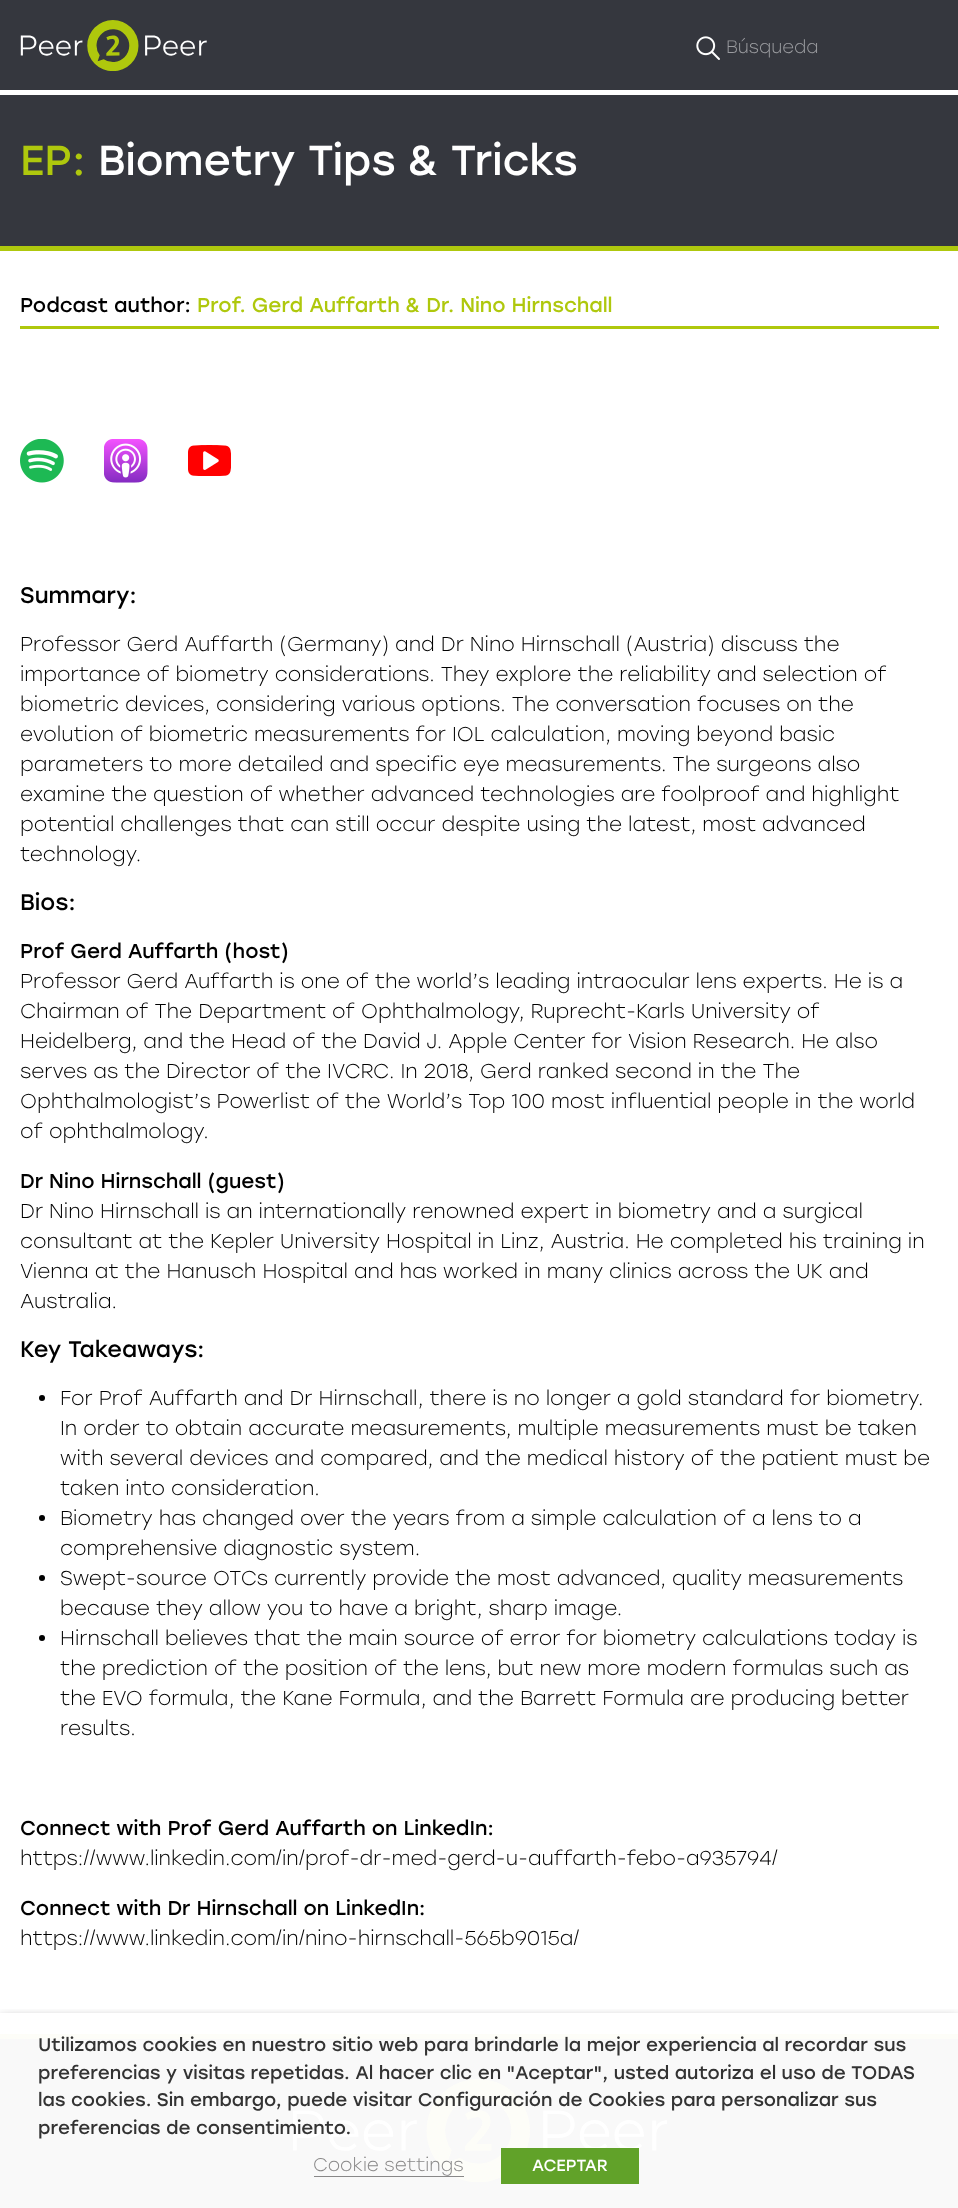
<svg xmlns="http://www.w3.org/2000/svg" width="958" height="2208">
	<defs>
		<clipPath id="clip1"><rect x="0" y="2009" width="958" height="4" /></clipPath>
	</defs>
	<rect width="100%" height="100%" fill="#FFFFFF" />
	<rect x="0" y="0" width="958" height="90" fill="#35373E" />
	<image x="20" y="20" width="187" height="51" href="assets/img1.png" />
	<image x="696" y="36" width="24" height="24" href="assets/img2.png" />
	<text x="726" y="53" font-family="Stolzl" font-size="18" font-weight="300" fill="#9A9B9F">Búsqueda</text>
	<rect x="0" y="95" width="958" height="151" fill="#35373E" />
	<rect x="0" y="246" width="958" height="5" fill="#AFC80D" />
	<text x="20" y="175" font-family="Stolzl" font-size="41.9" fill="#AFC80D">EP:</text>
	<text x="98" y="175" font-family="Stolzl" font-size="41.9" fill="#FFFFFF">Biometry Tips &amp; Tricks</text>
	<text x="20" y="312" font-family="Stolzl" font-size="20" fill="#000000">Podcast author:</text>
	<text x="197" y="312" font-family="Stolzl" font-size="20" fill="#AFC80D">Prof. Gerd Auffarth &amp; Dr. Nino Hirnschall</text>
	<rect x="20" y="326" width="919" height="3" fill="#AFC80D" />
	<image x="20" y="439" width="44" height="44" href="assets/img3.png" />
	<image x="104" y="439" width="44" height="44" href="assets/img4.png" />
	<image x="188" y="445" width="43" height="31" href="assets/img5.png" />
	<text x="20" y="603" font-family="Stolzl" font-size="22.5" fill="#000000">Summary:</text>
	<g font-family="Stolzl" font-size="20" font-weight="300" fill="#000000">
		<text x="20" y="651">Professor Gerd Auffarth (Germany) and Dr Nino Hirnschall (Austria) discuss the</text>
		<text x="20" y="681">importance of biometry considerations. They explore the reliability and selection of</text>
		<text x="20" y="711">biometric devices, considering various options. The conversation focuses on the</text>
		<text x="20" y="741">evolution of biometric measurements for IOL calculation, moving beyond basic</text>
		<text x="20" y="771">parameters to more detailed and specific eye measurements. The surgeons also</text>
		<text x="20" y="801">examine the question of whether advanced technologies are foolproof and highlight</text>
		<text x="20" y="831">potential challenges that can still occur despite using the latest, most advanced</text>
		<text x="20" y="861">technology.</text>
	</g>
	<text x="20" y="910" font-family="Stolzl" font-size="22.5" fill="#000000">Bios:</text>
	<text x="20" y="958" font-family="Stolzl" font-size="20" fill="#000000">Prof Gerd Auffarth (host)</text>
	<g font-family="Stolzl" font-size="20" font-weight="300" fill="#000000">
		<text x="20" y="988">Professor Gerd Auffarth is one of the world’s leading intraocular lens experts. He is a</text>
		<text x="20" y="1018">Chairman of The Department of Ophthalmology, Ruprecht-Karls University of</text>
		<text x="20" y="1048">Heidelberg, and the Head of the David J. Apple Center for Vision Research. He also</text>
		<text x="20" y="1078">serves as the Director of the IVCRC. In 2018, Gerd ranked second in the The</text>
		<text x="20" y="1108">Ophthalmologist’s Powerlist of the World’s Top 100 most influential people in the world</text>
		<text x="20" y="1138">of ophthalmology.</text>
	</g>
	<text x="20" y="1188" font-family="Stolzl" font-size="20" fill="#000000">Dr Nino Hirnschall (guest)</text>
	<g font-family="Stolzl" font-size="20" font-weight="300" fill="#000000">
		<text x="20" y="1218">Dr Nino Hirnschall is an internationally renowned expert in biometry and a surgical</text>
		<text x="20" y="1248">consultant at the Kepler University Hospital in Linz, Austria. He completed his training in</text>
		<text x="20" y="1278">Vienna at the Hanusch Hospital and has worked in many clinics across the UK and</text>
		<text x="20" y="1308">Australia.</text>
	</g>
	<text x="20" y="1357" font-family="Stolzl" font-size="22.5" fill="#000000">Key Takeaways:</text>
	<circle cx="42" cy="1398" r="3" fill="#000000" />
	<g font-family="Stolzl" font-size="20" font-weight="300" fill="#000000">
		<text x="60" y="1405">For Prof Auffarth and Dr Hirnschall, there is no longer a gold standard for biometry.</text>
		<text x="60" y="1435">In order to obtain accurate measurements, multiple measurements must be taken</text>
		<text x="60" y="1465">with several devices and compared, and the medical history of the patient must be</text>
		<text x="60" y="1495">taken into consideration.</text>
	</g>
	<circle cx="42" cy="1518" r="3" fill="#000000" />
	<g font-family="Stolzl" font-size="20" font-weight="300" fill="#000000">
		<text x="60" y="1525">Biometry has changed over the years from a simple calculation of a lens to a</text>
		<text x="60" y="1555">comprehensive diagnostic system.</text>
	</g>
	<circle cx="42" cy="1578" r="3" fill="#000000" />
	<g font-family="Stolzl" font-size="20" font-weight="300" fill="#000000">
		<text x="60" y="1585">Swept-source OTCs currently provide the most advanced, quality measurements</text>
		<text x="60" y="1615">because they allow you to have a bright, sharp image.</text>
	</g>
	<circle cx="42" cy="1638" r="3" fill="#000000" />
	<g font-family="Stolzl" font-size="20" font-weight="300" fill="#000000">
		<text x="60" y="1645">Hirnschall believes that the main source of error for biometry calculations today is</text>
		<text x="60" y="1675">the prediction of the position of the lens, but new more modern formulas such as</text>
		<text x="60" y="1705">the EVO formula, the Kane Formula, and the Barrett Formula are producing better</text>
		<text x="60" y="1735">results.</text>
	</g>
	<text x="20" y="1835" font-family="Stolzl" font-size="20" fill="#000000">Connect with Prof Gerd Auffarth on LinkedIn:</text>
	<text x="20" y="1865" font-family="Stolzl" font-size="20" font-weight="300" fill="#000000">https://www.linkedin.com/in/prof-dr-med-gerd-u-auffarth-febo-a935794/</text>
	<text x="20" y="1915" font-family="Stolzl" font-size="20" fill="#000000">Connect with Dr Hirnschall on LinkedIn:</text>
	<text x="20" y="1945" font-family="Stolzl" font-size="20" font-weight="300" fill="#000000">https://www.linkedin.com/in/nino-hirnschall-565b9015a/</text>
	<rect x="0" y="2039" width="958" height="169" fill="#F9F9F9" />
	<rect x="0" y="2034" width="958" height="5" fill="#FDFDF8" />
	<image x="292" y="2079" width="376" height="104" href="assets/img6.png" />
	<g clip-path="url(#clip1)">
		<rect x="0" y="2019" width="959" height="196" fill="#000000" fill-opacity="0.5" filter="blur(6px)" />
	</g>
	<g font-family="Stolzl" font-size="18.35" fill="#333333">
		<text x="38" y="2051">Utilizamos cookies en nuestro sitio web para brindarle la mejor experiencia al recordar sus</text>
		<text x="38" y="2079">preferencias y visitas repetidas. Al hacer clic en "Aceptar", usted autoriza el uso de TODAS</text>
		<text x="38" y="2106">las cookies. Sin embargo, puede visitar Configuración de Cookies para personalizar sus</text>
		<text x="38" y="2134">preferencias de consentimiento.</text>
	</g>
	<text x="313" y="2171" font-family="Stolzl" font-size="18.35" font-weight="300" fill="#898888">Cookie settings</text>
	<rect x="314" y="2176" width="150" height="1" fill="#898888" />
	<rect x="501" y="2148" width="138" height="36" fill="#61A229" />
	<text x="532" y="2171" font-family="Stolzl" font-size="16.25" fill="#FFFFFF">ACEPTAR</text>
</svg>
